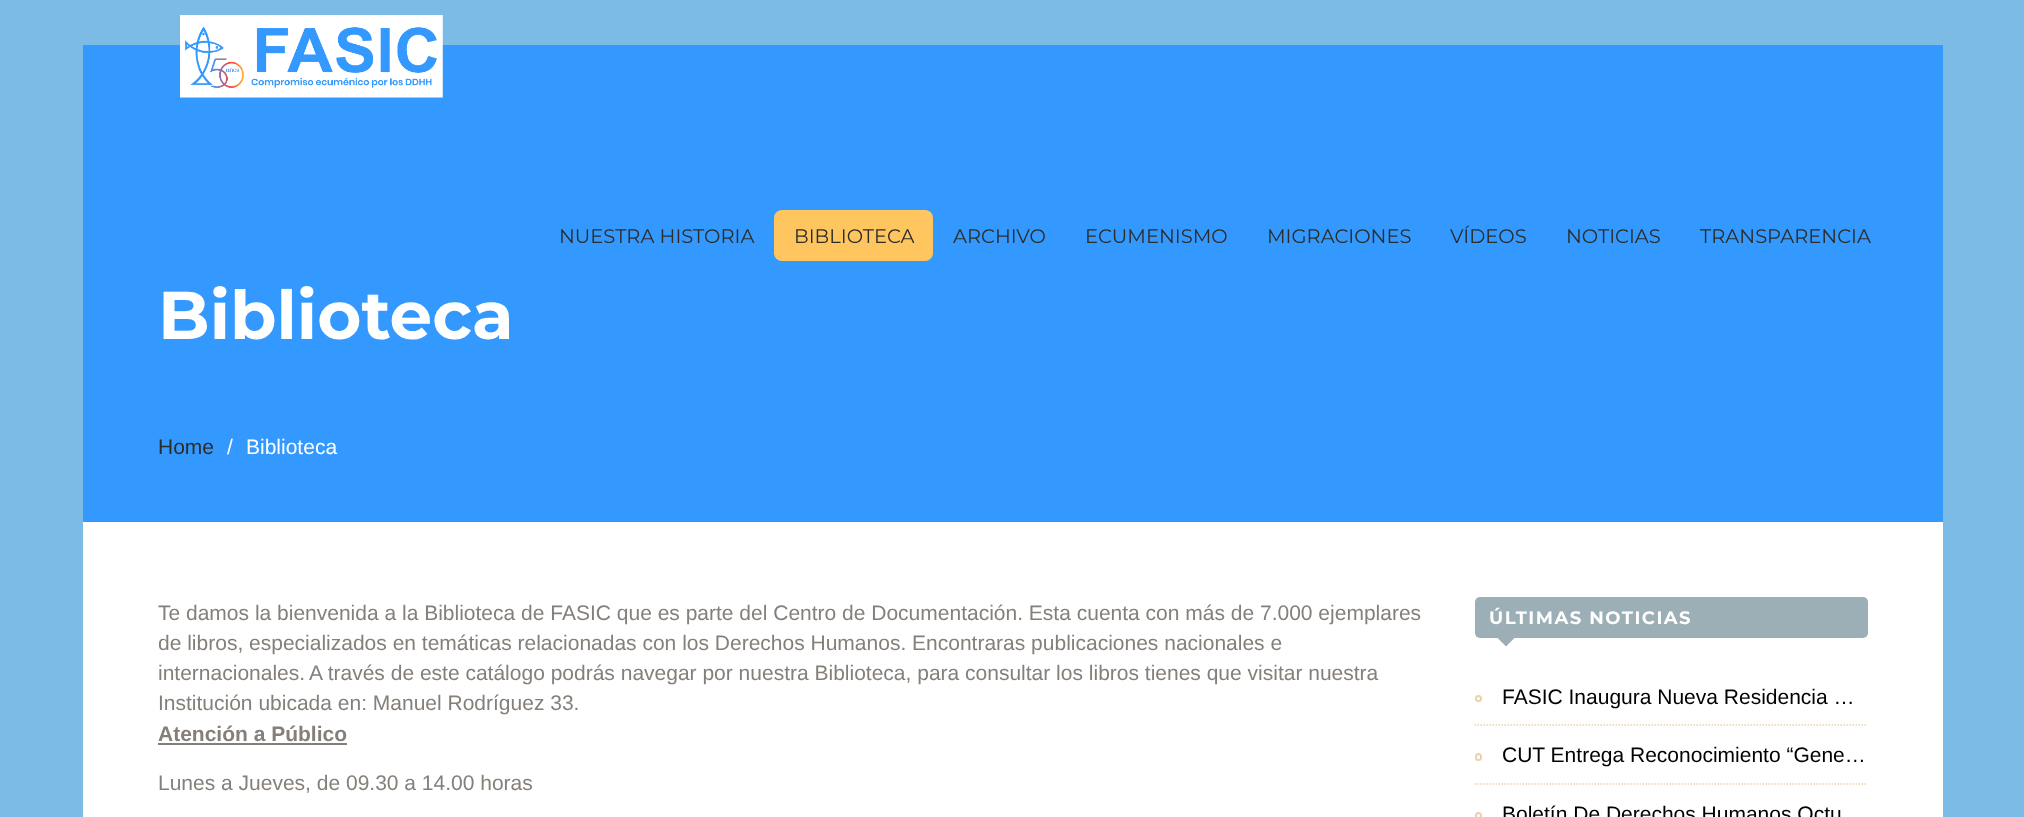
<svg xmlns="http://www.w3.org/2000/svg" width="2024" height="817">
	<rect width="100%" height="100%" fill="#7BBBE5" />
	<rect x="83" y="522" width="1860" height="295" fill="#FFFFFF" />
	<rect x="83" y="45" width="1860" height="477" fill="#3399FF" />
	<image x="180" y="15" width="263" height="83" href="assets/img1.png" />
	<text x="559" y="243" font-family="Montserrat" font-size="19.5" fill="#2C2C2A">NUESTRA HISTORIA</text>
	<rect x="774" y="210" width="159" height="51" rx="8" fill="#FFC55F" />
	<g font-family="Montserrat" font-size="19.5" fill="#2C2C2A">
		<text x="794" y="243">BIBLIOTECA</text>
		<text x="953" y="243">ARCHIVO</text>
		<text x="1085" y="243">ECUMENISMO</text>
		<text x="1267" y="243">MIGRACIONES</text>
		<text x="1450" y="243">VÍDEOS</text>
		<text x="1566" y="243">NOTICIAS</text>
		<text x="1700" y="243">TRANSPARENCIA</text>
	</g>
	<text x="158" y="339" font-family="Montserrat" font-size="67.5" font-weight="700" fill="#FFFFFF">Biblioteca</text>
	<text x="158" y="454" font-family="Liberation Sans" font-size="21" fill="#2C2C2A">Home</text>
	<g font-family="Liberation Sans" font-size="21" fill="#FFFFFF">
		<text x="227" y="454">/</text>
		<text x="246" y="454">Biblioteca</text>
	</g>
	<g font-family="Liberation Sans" font-size="21" fill="#857F79">
		<text x="158" y="620">Te damos la bienvenida a la Biblioteca de FASIC que es parte del Centro de Documentación. Esta cuenta con más de 7.000 ejemplares</text>
		<text x="158" y="650">de libros, especializados en temáticas relacionadas con los Derechos Humanos. Encontraras publicaciones nacionales e</text>
		<text x="158" y="680">internacionales.</text>
		<text x="309" y="680">A través de este catálogo podrás navegar por nuestra Biblioteca, para consultar los libros tienes que visitar nuestra</text>
		<text x="158" y="710">Institución ubicada en: Manuel Rodríguez 33.</text>
	</g>
	<text x="158" y="741" font-family="Liberation Sans" font-size="21" font-weight="700" fill="#857F79">Atención a Público</text>
	<rect x="158" y="743" width="189" height="2" fill="#857F79" />
	<text x="158" y="790" font-family="Liberation Sans" font-size="21" fill="#857F79">Lunes a Jueves, de 09.30 a 14.00 horas</text>
	<rect x="1475" y="597" width="393" height="41" rx="5" fill="#9CAFB7" />
	<text x="1489" y="624" font-family="Montserrat" font-size="18" font-weight="700" letter-spacing="1.5" fill="#FFFFFF">ÚLTIMAS NOTICIAS</text>
	<path d="M1497 637.5H1515L1506 646.5Z" fill="#9CAFB7" />
	<path d="M1474.5 725H1867.5" fill="none" stroke="#EAD2AC" stroke-width="1.5" stroke-dasharray="1.5 1.5" />
	<circle cx="1478.5" cy="698.5" r="2.5" fill="none" stroke="#EAD2AC" stroke-width="2" />
	<text x="1502" y="704" font-family="Liberation Sans" font-size="21" fill="#000000">FASIC Inaugura Nueva Residencia …</text>
	<path d="M1474.5 784H1867.5" fill="none" stroke="#EAD2AC" stroke-width="1.5" stroke-dasharray="1.5 1.5" />
	<rect x="1476" y="754" width="5" height="6" rx="2.5" fill="none" stroke="#EAD2AC" stroke-width="2" />
	<text x="1502" y="762" font-family="Liberation Sans" font-size="21" fill="#000000">CUT Entrega Reconocimiento “Gene…</text>
	<circle cx="1478.5" cy="815.5" r="2.5" fill="none" stroke="#EAD2AC" stroke-width="2" />
	<text x="1502" y="821" font-family="Liberation Sans" font-size="21" fill="#000000">Boletín De Derechos Humanos Octu</text>
</svg>
